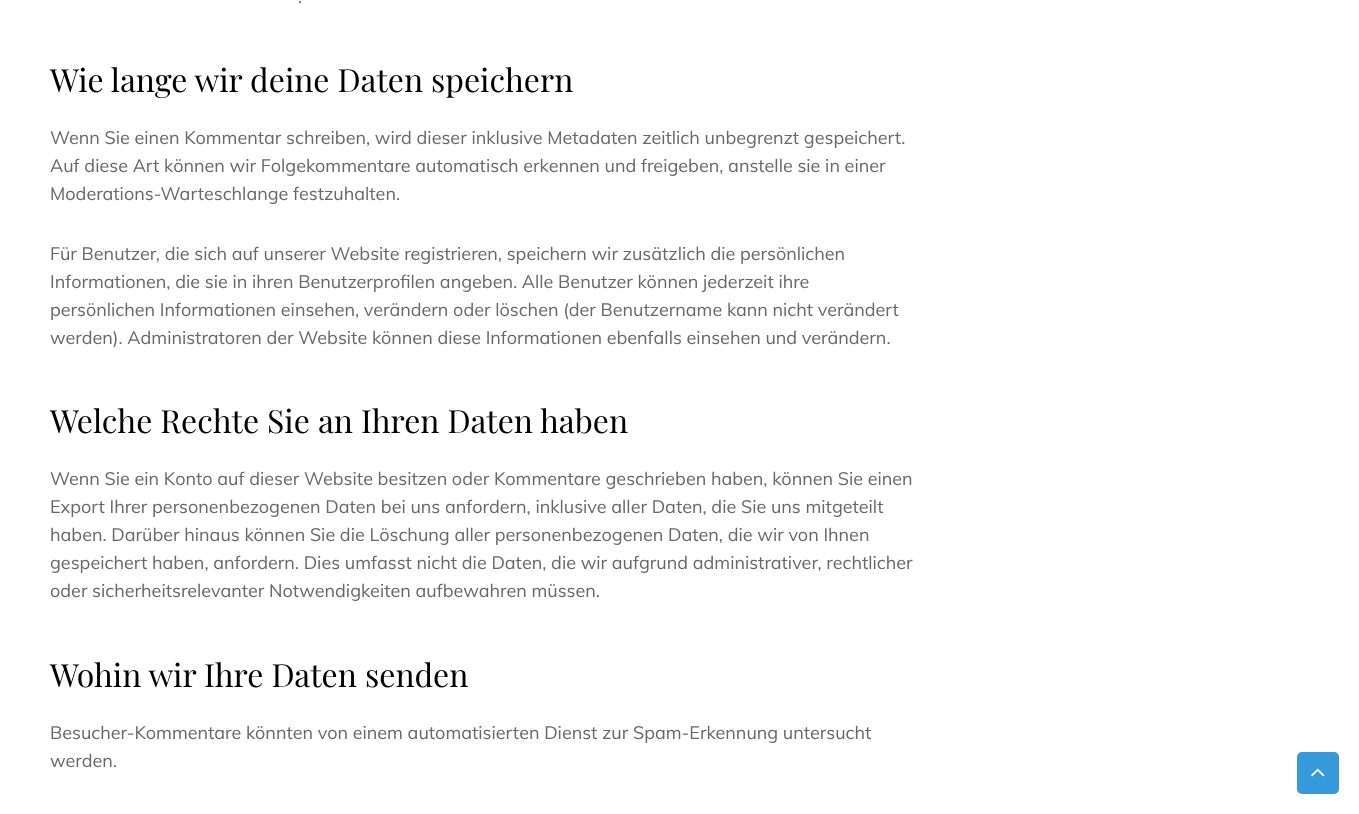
<svg xmlns="http://www.w3.org/2000/svg" width="1359" height="814">
	<rect width="100%" height="100%" fill="#FFFFFF" />
	<text x="298" y="3" font-family="Muli" font-size="18" fill="#676767">.</text>
	<text x="50" y="92" font-family="Playfair Display" font-size="32" fill="#000000">Wie lange wir deine Daten speichern</text>
	<g font-family="Muli" font-size="18" fill="#676767">
		<text x="50" y="144">Wenn Sie einen Kommentar schreiben, wird dieser inklusive Metadaten zeitlich unbegrenzt gespeichert.</text>
		<text x="50" y="172">Auf diese Art können wir Folgekommentare automatisch erkennen und freigeben, anstelle sie in einer</text>
		<text x="50" y="200">Moderations-Warteschlange festzuhalten.</text>
		<text x="50" y="260">Für Benutzer, die sich auf unserer Website registrieren, speichern wir zusätzlich die persönlichen</text>
		<text x="50" y="288">Informationen, die sie in ihren Benutzerprofilen angeben. Alle Benutzer können jederzeit ihre</text>
		<text x="50" y="316">persönlichen Informationen einsehen, verändern oder löschen (der Benutzername kann nicht verändert</text>
		<text x="50" y="344">werden). Administratoren der Website können diese Informationen ebenfalls einsehen und verändern.</text>
	</g>
	<text x="50" y="433" font-family="Playfair Display" font-size="32" fill="#000000">Welche Rechte Sie an Ihren Daten haben</text>
	<g font-family="Muli" font-size="18" fill="#676767">
		<text x="50" y="485">Wenn Sie ein Konto auf dieser Website besitzen oder Kommentare geschrieben haben, können Sie einen</text>
		<text x="50" y="513">Export Ihrer personenbezogenen Daten bei uns anfordern, inklusive aller Daten, die Sie uns mitgeteilt</text>
		<text x="50" y="541">haben. Darüber hinaus können Sie die Löschung aller personenbezogenen Daten, die wir von Ihnen</text>
		<text x="50" y="569">gespeichert haben, anfordern. Dies umfasst nicht die Daten, die wir aufgrund administrativer, rechtlicher</text>
		<text x="50" y="597">oder sicherheitsrelevanter Notwendigkeiten aufbewahren müssen.</text>
	</g>
	<text x="50" y="687" font-family="Playfair Display" font-size="32" fill="#000000">Wohin wir Ihre Daten senden</text>
	<g font-family="Muli" font-size="18" fill="#676767">
		<text x="50" y="739">Besucher-Kommentare könnten von einem automatisierten Dienst zur Spam-Erkennung untersucht</text>
		<text x="50" y="767">werden.</text>
	</g>
	<rect x="1297" y="752" width="42" height="42" rx="5" fill="#3699DC" />
	<image x="1311" y="768" width="14" height="9" href="assets/img1.png" />
</svg>
